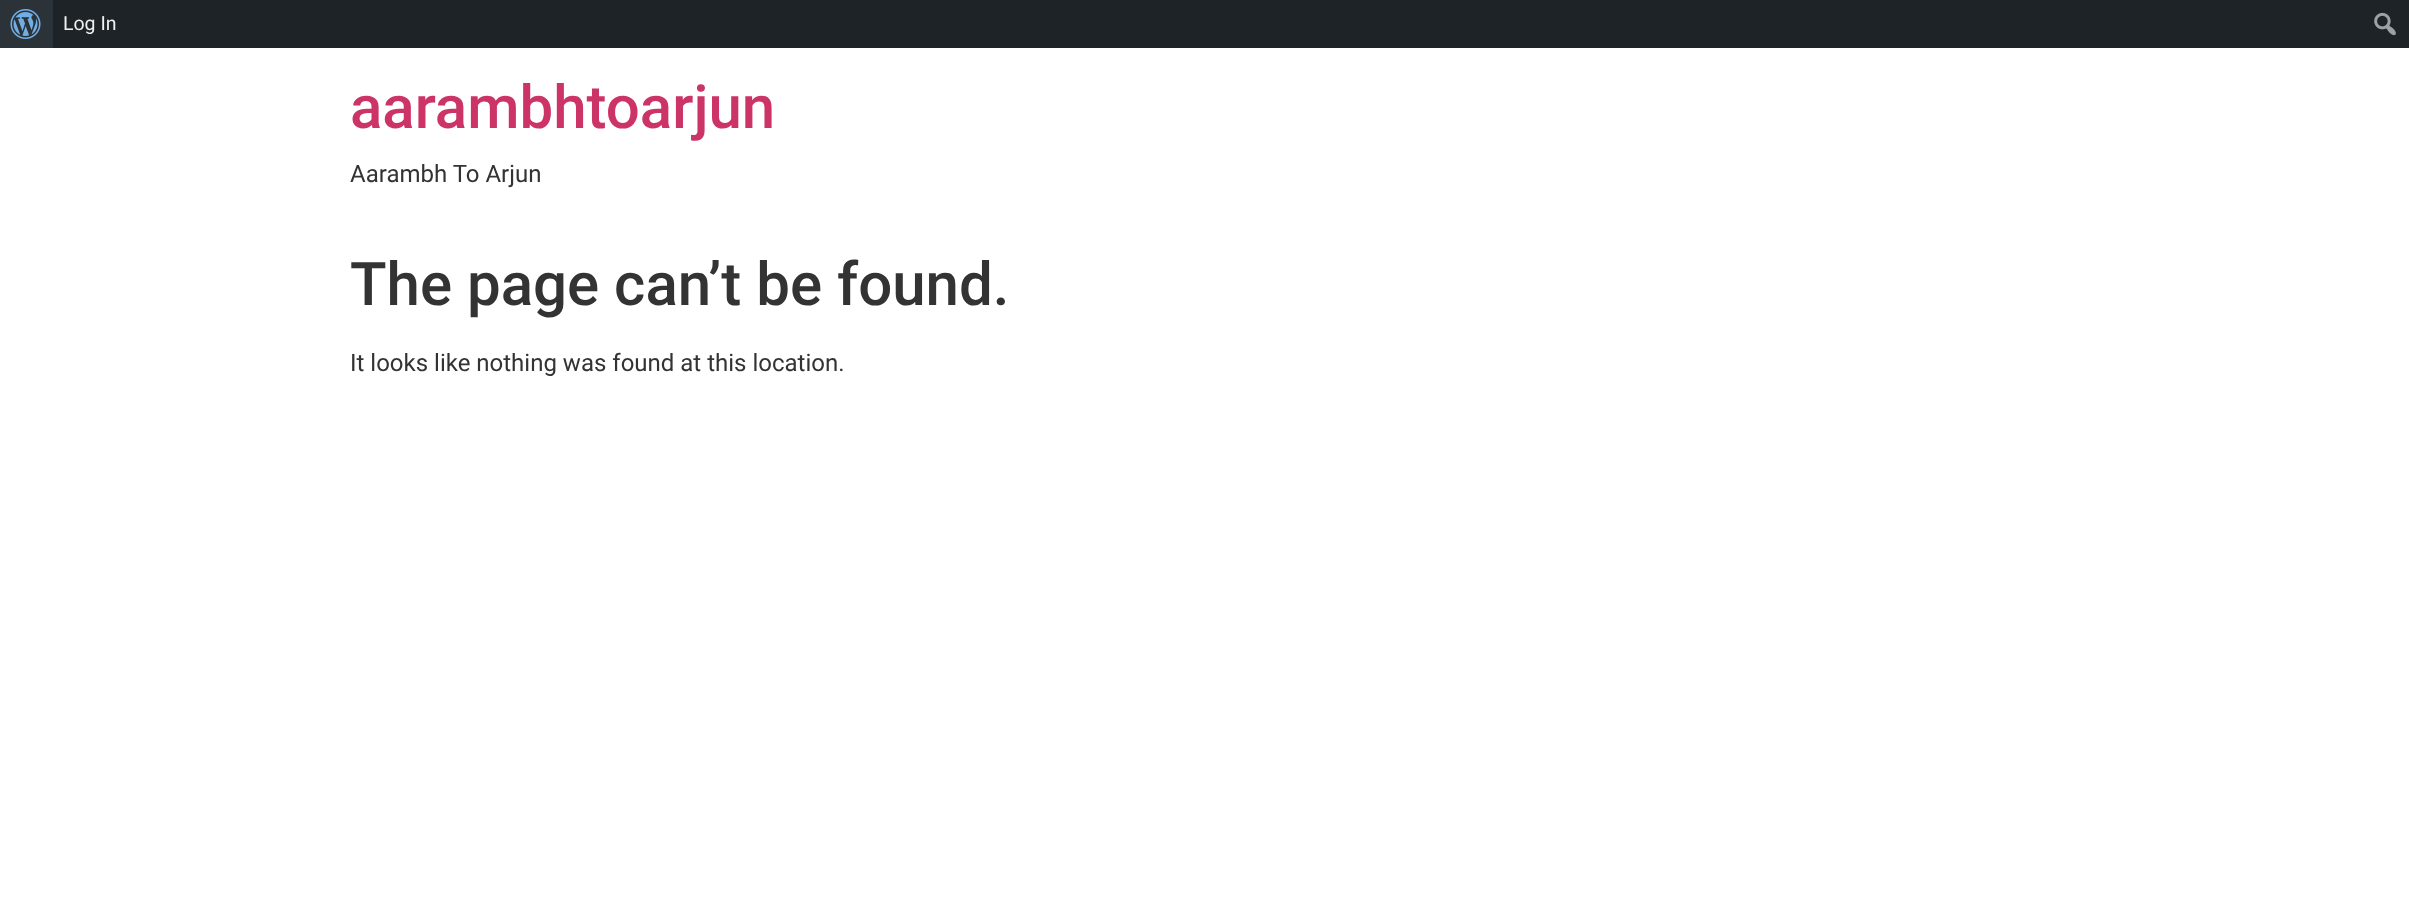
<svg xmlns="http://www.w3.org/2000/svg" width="2409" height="900">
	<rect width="100%" height="100%" fill="#FFFFFF" />
	<rect x="53" y="0" width="2356" height="48" fill="#1D2327" />
	<rect x="0" y="0" width="53" height="48" fill="#2C3338" />
	<image x="10" y="9" width="31" height="30" href="assets/img1.png" />
	<text x="63" y="30" font-family="Roboto" font-size="19.5" fill="#F0F0F1">Log In</text>
	<image x="2374" y="12" width="22" height="24" href="assets/img2.png" />
	<text x="350" y="128" font-family="Roboto" font-size="60" font-weight="500" fill="#CC3366">aarambhtoarjun</text>
	<text x="350" y="182" font-family="Roboto" font-size="24" fill="#333333">Aarambh To Arjun</text>
	<text x="350" y="305" font-family="Roboto" font-size="60" font-weight="500" fill="#333333">The page can’t be found.</text>
	<text x="350" y="371" font-family="Roboto" font-size="24" fill="#333333">It looks like nothing was found at this location.</text>
</svg>
